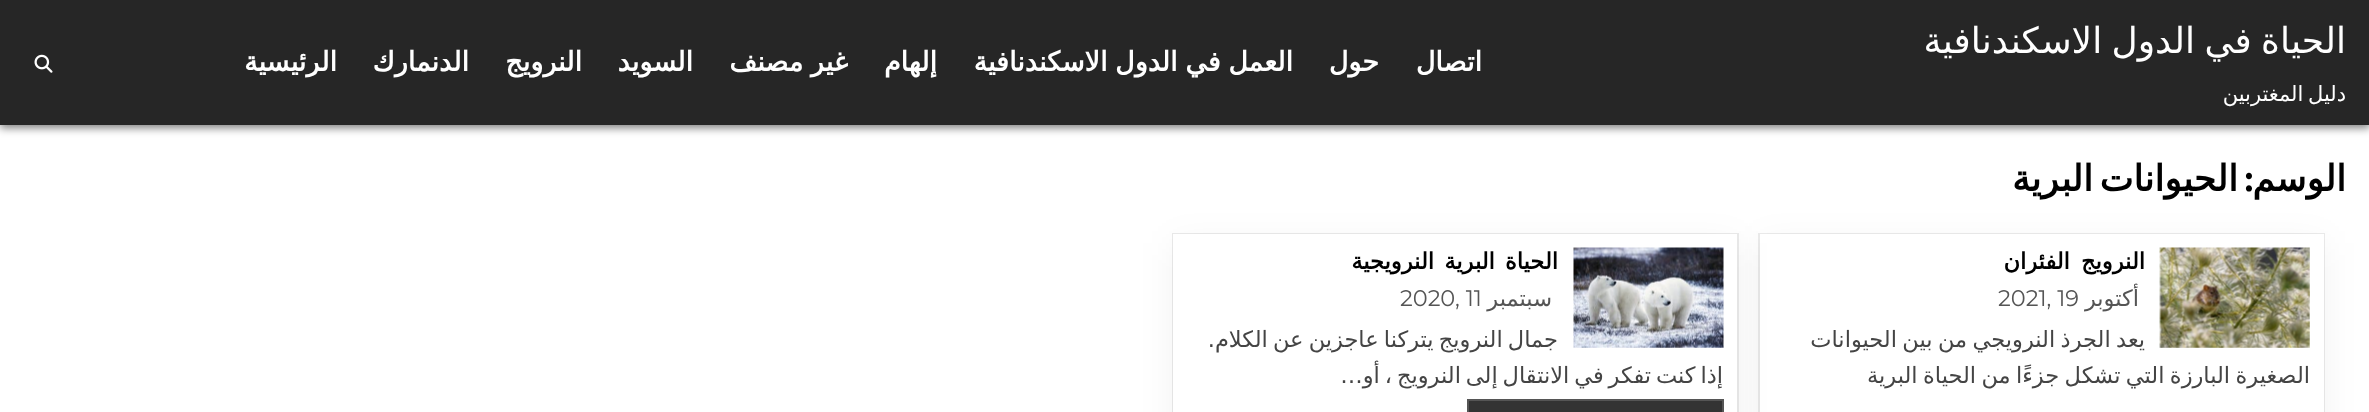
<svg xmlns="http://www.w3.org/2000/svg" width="2369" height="412">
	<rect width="100%" height="100%" fill="#FFFFFF" />
	<rect x="0" y="3" width="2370" height="125" fill="#000000" fill-opacity="0.5" filter="blur(4px)" />
	<rect x="0" y="0" width="2369" height="125" fill="#262626" />
	<text x="2346" y="53" word-spacing="-2" font-family="DejaVu Sans" font-size="36" direction="rtl" fill="#FFFFFF">الحياة في الدول الاسكندنافية</text>
	<text x="2346" y="101" word-spacing="-2" font-family="DejaVu Sans" font-size="21" direction="rtl" fill="#FFFFFF">دليل المغتربين</text>
	<g font-family="DejaVu Sans" font-size="27" font-weight="700" direction="rtl" fill="#FFFFFF">
		<text x="1482" y="71">اتصال</text>
		<text x="1379" y="71">حول</text>
		<text x="1293" y="71" word-spacing="-1">العمل في الدول الاسكندنافية</text>
		<text x="937" y="71">إلهام</text>
		<text x="848" y="71" word-spacing="-1">غير مصنف</text>
		<text x="693" y="71">السويد</text>
		<text x="582" y="71">النرويج</text>
		<text x="469" y="71">الدنمارك</text>
		<text x="337" y="71">الرئيسية</text>
	</g>
	<image x="34" y="54" width="19" height="19" href="assets/img1.png" />
	<text x="2346" y="191" font-family="DejaVu Sans" font-size="36" font-weight="700" direction="rtl" fill="#000000">الوسم</text>
	<text x="2253" y="191" font-family="Fira Sans Extra Condensed" font-size="36" font-weight="700" direction="rtl" fill="#000000">:</text>
	<text x="2238" y="191" word-spacing="-5" font-family="DejaVu Sans" font-size="36" font-weight="700" direction="rtl" fill="#000000">الحيوانات البرية</text>
	<rect x="1759" y="234" width="565" height="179" fill="none" stroke="#EBEBEB" stroke-width="2" />
	<rect x="1760" y="243" width="564" height="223" fill="#000000" fill-opacity="0.05" filter="blur(18px)" />
	<rect x="1760" y="234" width="564" height="178" fill="#FFFFFF" />
	<image x="2159" y="247" width="151" height="101" href="assets/img2.png" />
	<text x="2145" y="269" word-spacing="4" font-family="DejaVu Sans" font-size="22.5" font-weight="700" letter-spacing="-0.3" direction="rtl" fill="#000000">النرويج الفئران</text>
	<text x="2139" y="306" font-family="DejaVu Sans" font-size="22.5" direction="rtl" fill="#555555">أكتوبر</text>
	<text x="1998" y="306" font-family="Montserrat" font-size="22.5" fill="#555555">2021, 19</text>
	<g font-family="DejaVu Sans" font-size="22.5" direction="rtl" fill="#444444">
		<text x="2145" y="347" word-spacing="-1.75">يعد الجرذ النرويجي من بين الحيوانات</text>
		<text x="2310" y="383" word-spacing="-1.75">الصغيرة البارزة التي تشكل جزءًا من الحياة البرية</text>
	</g>
	<rect x="1173" y="234" width="565" height="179" fill="none" stroke="#EAEAEA" stroke-width="2" />
	<rect x="1173" y="243" width="564" height="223" fill="#000000" fill-opacity="0.05" filter="blur(18px)" />
	<rect x="1173" y="234" width="564" height="178" fill="#FFFFFF" />
	<image x="1573" y="247" width="151" height="101" href="assets/img3.png" />
	<text x="1558" y="269" word-spacing="3" font-family="DejaVu Sans" font-size="22.5" font-weight="700" letter-spacing="-0.3" direction="rtl" fill="#000000">الحياة البرية النرويجية</text>
	<text x="1552" y="306" font-family="DejaVu Sans" font-size="22.5" direction="rtl" fill="#555555">سبتمبر</text>
	<text x="1400" y="306" font-family="Montserrat" font-size="22.5" fill="#555555">2020, 11</text>
	<g font-family="DejaVu Sans" font-size="22.5" direction="rtl" fill="#444444">
		<text x="1558" y="347" word-spacing="-2">جمال النرويج يتركنا عاجزين عن الكلام.</text>
		<text x="1723" y="383" word-spacing="-2.25">إذا كنت تفكر في الانتقال إلى النرويج ، أو…</text>
	</g>
	<rect x="1468" y="400" width="255" height="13" fill="#333333" stroke="#555555" stroke-width="2" />
</svg>
